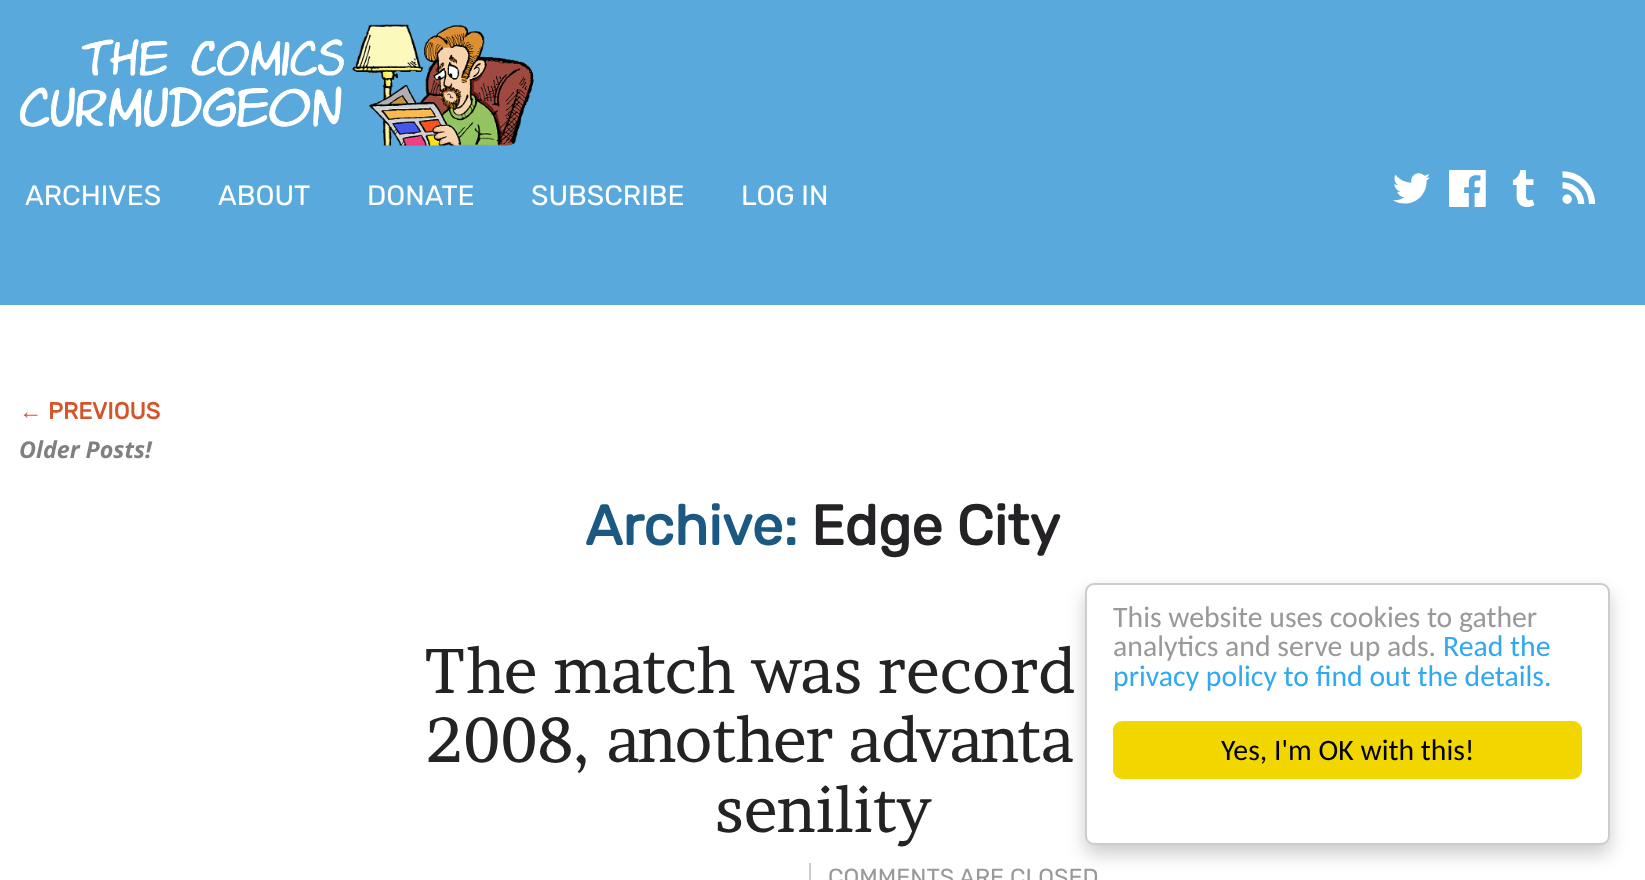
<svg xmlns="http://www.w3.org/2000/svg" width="1645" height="880">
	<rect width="100%" height="100%" fill="#FFFFFF" />
	<rect x="0" y="0" width="1645" height="305" fill="#59A9DD" />
	<image x="20" y="39" width="324" height="88" href="assets/img1.png" />
	<image x="352" y="24" width="182" height="122" href="assets/img2.png" />
	<g font-family="Rubik" font-size="28" font-weight="300" fill="#FFFFFF">
		<text x="25" y="205">ARCHIVES</text>
		<text x="218" y="205">ABOUT</text>
		<text x="367" y="205">DONATE</text>
		<text x="531" y="205">SUBSCRIBE</text>
		<text x="741" y="205">LOG IN</text>
	</g>
	<image x="1393" y="173" width="37" height="31" href="assets/img3.png" />
	<image x="1449" y="170" width="37" height="37" href="assets/img4.png" />
	<image x="1512" y="170" width="23" height="37" href="assets/img5.png" />
	<image x="1562" y="171" width="34" height="33" href="assets/img6.png" />
	<text x="19" y="419" font-family="Liberation Sans" font-size="23.25" font-weight="700" fill="#D5552A">←</text>
	<text x="48" y="419" font-family="Rubik" font-size="23.25" font-weight="700" fill="#D5552A">PREVIOUS</text>
	<text x="19" y="458" font-family="Noto Sans" font-size="23.25" font-weight="700" font-style="italic" fill="#808080">Older Posts!</text>
	<text x="585" y="545" font-family="Rubik" font-size="56" font-weight="700" fill="#1B5982">Archive:</text>
	<text x="811" y="545" font-family="Rubik" font-size="56" font-weight="700" fill="#242225">Edge City</text>
	<g font-family="Brawler" font-size="63" fill="#242225">
		<text x="425" y="693">The match was record</text>
		<text x="426" y="762">2008, another advanta</text>
		<text x="715" y="832">senility</text>
	</g>
	<rect x="809" y="863" width="2" height="17" fill="#CCCCCC" />
	<text x="828" y="885" font-family="Rubik" font-size="23.25" font-weight="300" fill="#999999">COMMENTS ARE CLOSED</text>
	<rect x="1085" y="592" width="525" height="262" rx="9" fill="#000000" fill-opacity="0.2" filter="blur(9px)" />
	<rect x="1086" y="584" width="523" height="260" rx="8" fill="#FFFFFF" stroke="#CCCCCC" stroke-width="2" />
	<g font-family="Carlito" font-size="29.75" fill="#999999">
		<text x="1113" y="627">This website uses cookies to gather</text>
		<text x="1113" y="656">analytics and serve up ads.</text>
	</g>
	<g font-family="Carlito" font-size="29.75" fill="#31A8F0">
		<text x="1443" y="656">Read the</text>
		<text x="1113" y="686">privacy policy to find out the details.</text>
	</g>
	<rect x="1113" y="721" width="469" height="58" rx="9" fill="#F1D600" />
	<text x="1221" y="760" font-family="Carlito" font-size="29.75" fill="#000000">Yes, I'm OK with this!</text>
</svg>
